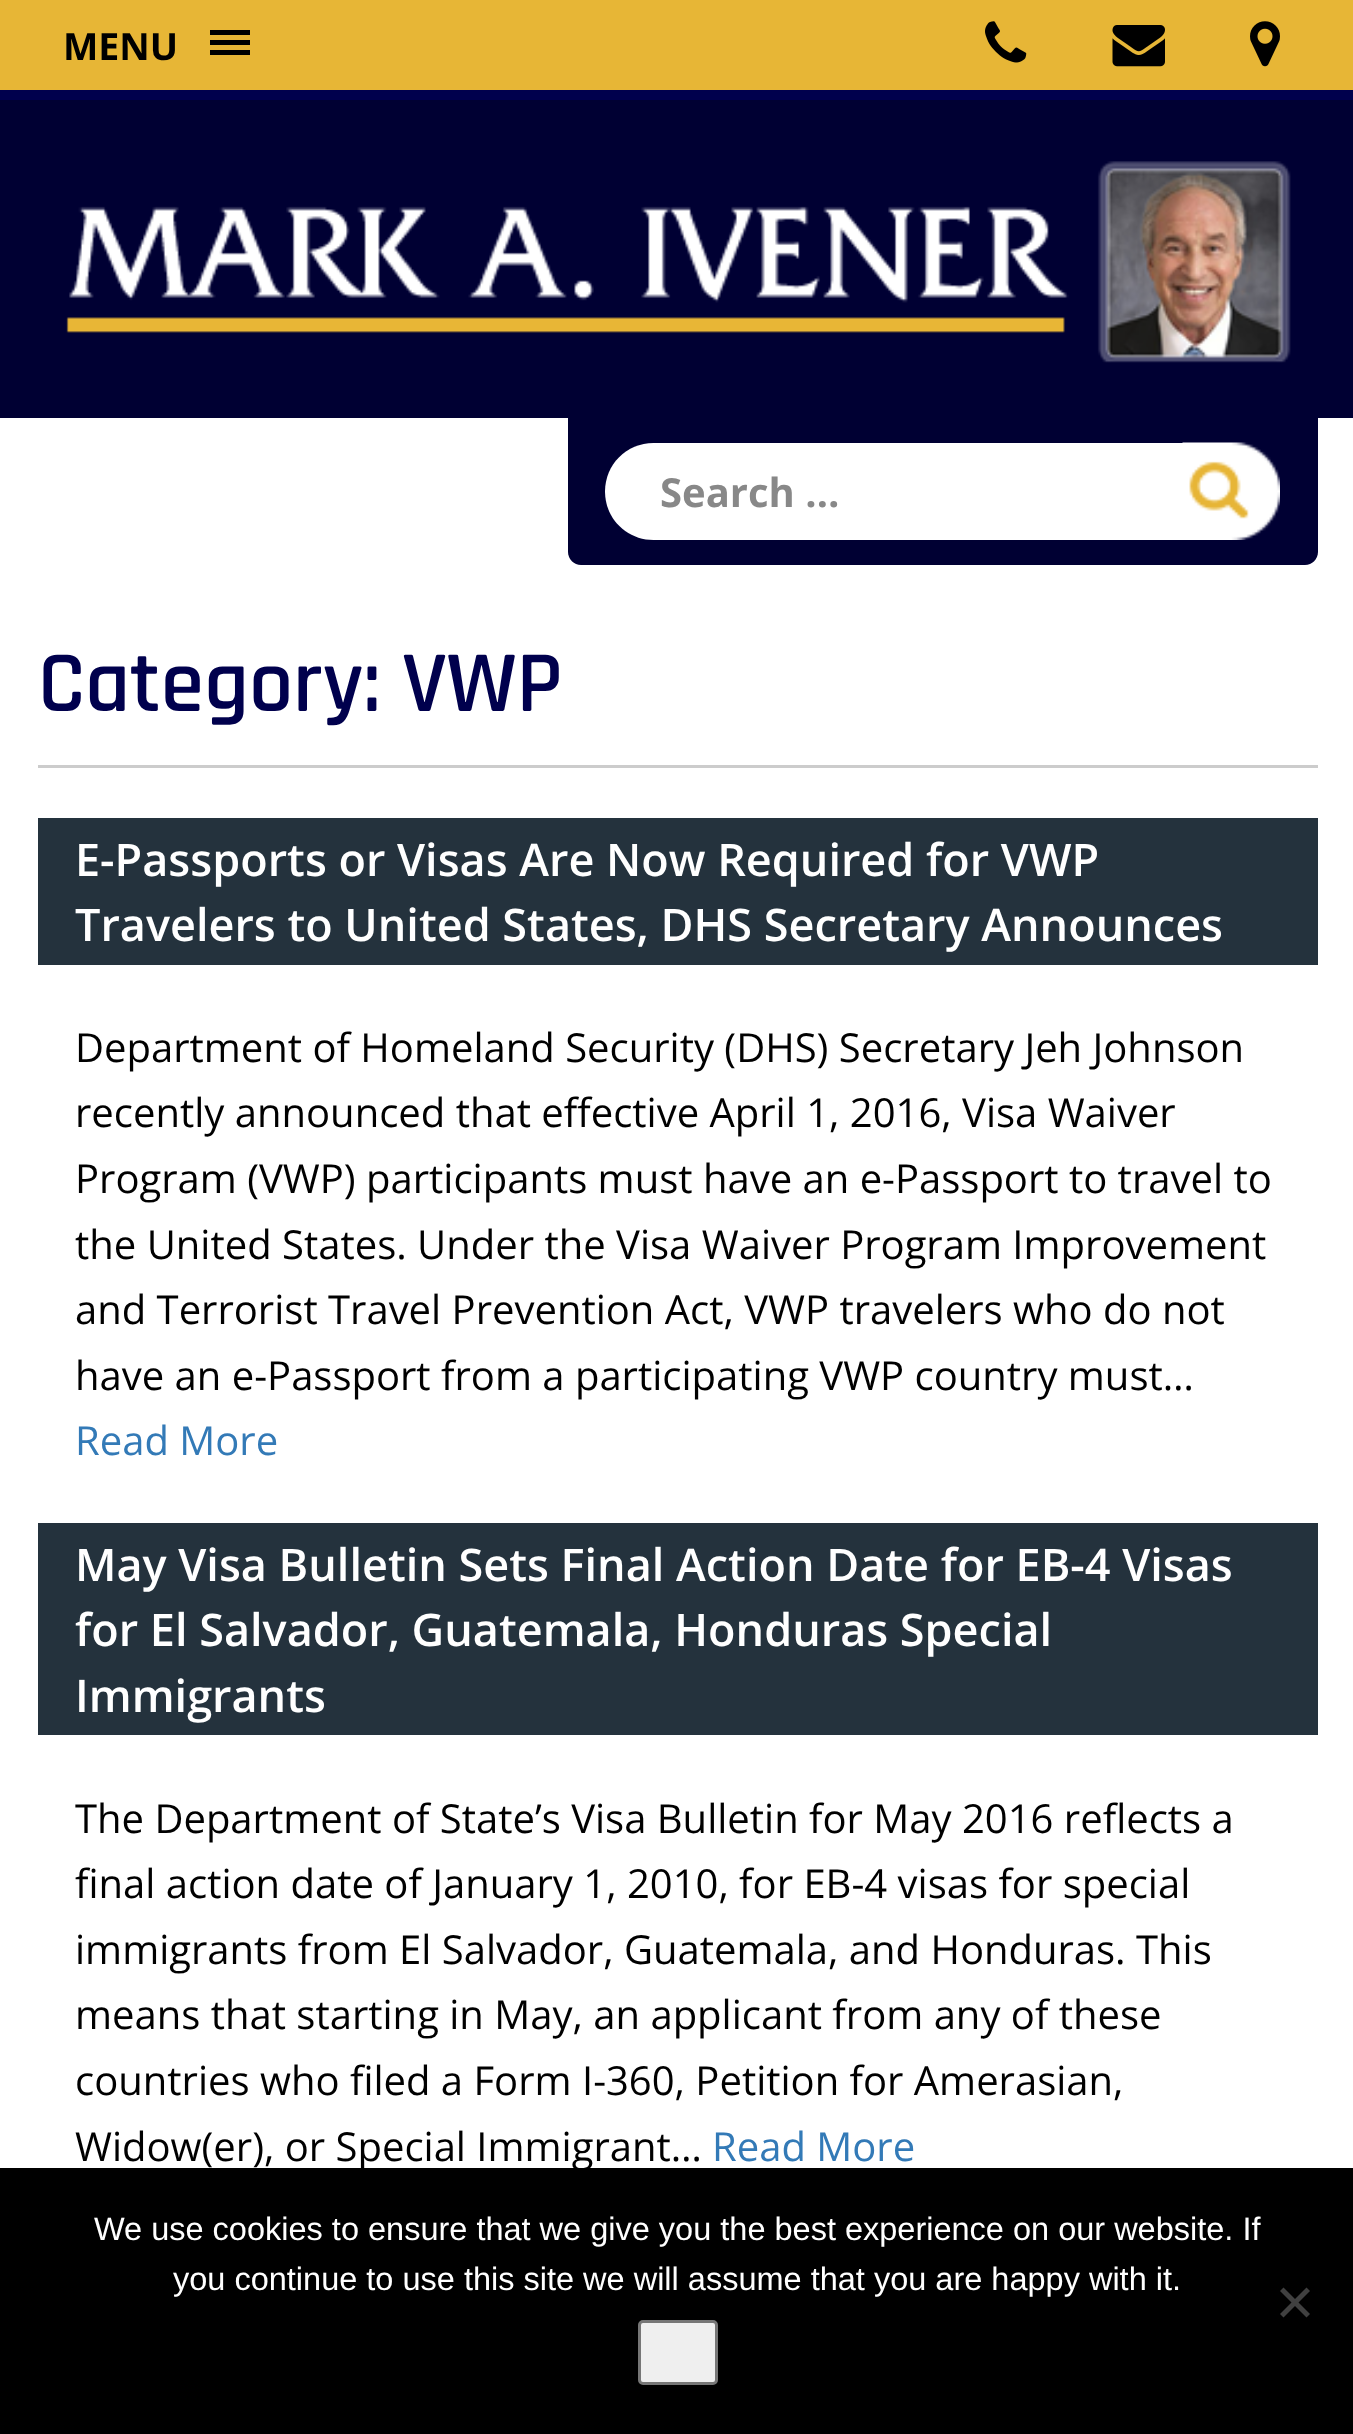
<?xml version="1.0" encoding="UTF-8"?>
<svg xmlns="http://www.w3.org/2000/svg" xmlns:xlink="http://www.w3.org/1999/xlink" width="1353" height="2434">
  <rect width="100%" height="100%" fill="#ffffff" />
  <rect width="1353" height="90" fill="#e7b636" />
  <image x="985" y="21" width="42" height="42" xlink:href="image1.png" />
  <image x="1112" y="25" width="53" height="42" xlink:href="image2.png" />
  <image x="1250" y="21" width="30" height="46" xlink:href="image3.png" />
  <rect y="90" width="1353" height="10" fill="#00004d" />
  <rect x="210" y="50" width="40" height="5" fill="#000000" />
  <rect x="210" y="30" width="40" height="5" fill="#000000" />
  <rect x="210" y="40" width="40" height="5" fill="#000000" />
  <rect y="100" width="1353" height="318" fill="#000033" />
  <image x="66" y="161" width="1225" height="202" xlink:href="image4.png" />
  <path d="M 568 418 h 750 v 134 c 0 7 -6 13 -13 13 h -724 c -7 0 -13 -6 -13 -13 z" fill="#000033" />
  <path d="M 653.5 443 h 529.5 v 97 h -529.5 c -27 0 -48.5 -21.5 -48.5 -48.5 c 0 -27 21.5 -48.5 48.5 -48.5 z" fill="#ffffff" />
  <image x="1182" y="442" width="98" height="98" xlink:href="image5.png" />
  <rect x="38" y="765" width="1280" height="3" fill="#cccccc" />
  <rect x="38" y="818" width="1280" height="147" fill="#24323d" />
  <rect x="38" y="1523" width="1280" height="212" fill="#24323d" />
  <rect y="2168" width="1353" height="266" fill="#000000" />
  <path d="M 1306.5 2287.5 l 3.5 3.5 l -26.5 26.5 l -3.5 -3.5 z" fill="#404040" />
  <path d="M 1280 2291 l 3.5 -3.5 l 26.5 26.5 l -3.5 3.5 z" fill="#404040" />
  <rect x="639.5" y="2321.5" width="77" height="62" rx="3.5" fill="#efefef" stroke="#767676" stroke-width="3" />
  <text x="63" y="60" style="font-family: Open Sans; font-size: 37.5px; font-weight: bold; fill: #000000">MENU</text>
  <text x="660" y="507" style="font-family: Open Sans; font-size: 40px; font-weight: bold; fill: #888888">Search …</text>
  <text x="38" y="711" style="font-family: Rajdhani; font-size: 87.5px; font-weight: 600; fill: #00004d">Category: VWP</text>
  <text x="75" y="876" style="font-family: Open Sans; font-size: 45px; font-weight: 600; fill: #ffffff">E-Passports or Visas Are Now Required for VWP</text>
  <text x="75" y="941" style="font-family: Open Sans; font-size: 45px; font-weight: 600; fill: #ffffff">Travelers to United States, DHS Secretary Announces</text>
  <text x="75" y="1062" style="font-family: Open Sans; font-size: 40px; fill: #000000">Department of Homeland Security (DHS) Secretary Jeh Johnson</text>
  <text x="75" y="1127" style="font-family: Open Sans; font-size: 40px; fill: #000000">recently announced that effective April 1, 2016, Visa Waiver</text>
  <text x="75" y="1193" style="font-family: Open Sans; font-size: 40px; fill: #000000">Program (VWP) participants must have an e-Passport to travel to</text>
  <text x="75" y="1259" style="font-family: Open Sans; font-size: 40px; fill: #000000">the United States. Under the Visa Waiver Program Improvement</text>
  <text x="75" y="1324" style="font-family: Open Sans; font-size: 40px; fill: #000000">and Terrorist Travel Prevention Act, VWP travelers who do not</text>
  <text x="75" y="1390" style="font-family: Open Sans; font-size: 40px; fill: #000000">have an e-Passport from a participating VWP country must…</text>
  <text x="75" y="1455" style="font-family: Open Sans; font-size: 40px; fill: #337ab7">Read More</text>
  <text x="75" y="1581" style="font-family: Open Sans; font-size: 45px; font-weight: 600; fill: #ffffff">May Visa Bulletin Sets Final Action Date for EB-4 Visas</text>
  <text x="75" y="1646" style="font-family: Open Sans; font-size: 45px; font-weight: 600; fill: #ffffff">for El Salvador, Guatemala, Honduras Special</text>
  <text x="75" y="1712" style="font-family: Open Sans; font-size: 45px; font-weight: 600; fill: #ffffff">Immigrants</text>
  <text x="75" y="1833" style="font-family: Open Sans; font-size: 40px; fill: #000000">The Department of State’s Visa Bulletin for May 2016 reflects a</text>
  <text x="75" y="1898" style="font-family: Open Sans; font-size: 40px; fill: #000000">final action date of January 1, 2010, for EB-4 visas for special</text>
  <text x="75" y="1964" style="font-family: Open Sans; font-size: 40px; fill: #000000">immigrants from El Salvador, Guatemala, and Honduras. This</text>
  <text x="75" y="2029" style="font-family: Open Sans; font-size: 40px; fill: #000000">means that starting in May, an applicant from any of these</text>
  <text x="75" y="2095" style="font-family: Open Sans; font-size: 40px; fill: #000000">countries who filed a Form I-360, Petition for Amerasian,</text>
  <text x="75" y="2161" style="font-family: Open Sans; font-size: 40px; fill: #000000">Widow(er), or Special Immigrant…</text>
  <text x="712" y="2161" style="font-family: Open Sans; font-size: 40px; fill: #337ab7">Read More</text>
  <text x="94" y="2240" style="font-family: Liberation Sans; font-size: 32.5px; fill: #ffffff">We use cookies to ensure that we give you the best experience on our website. If</text>
  <text x="173" y="2290" style="font-family: Liberation Sans; font-size: 32.5px; fill: #ffffff">you continue to use this site we will assume that you are happy with it.</text>
</svg>
